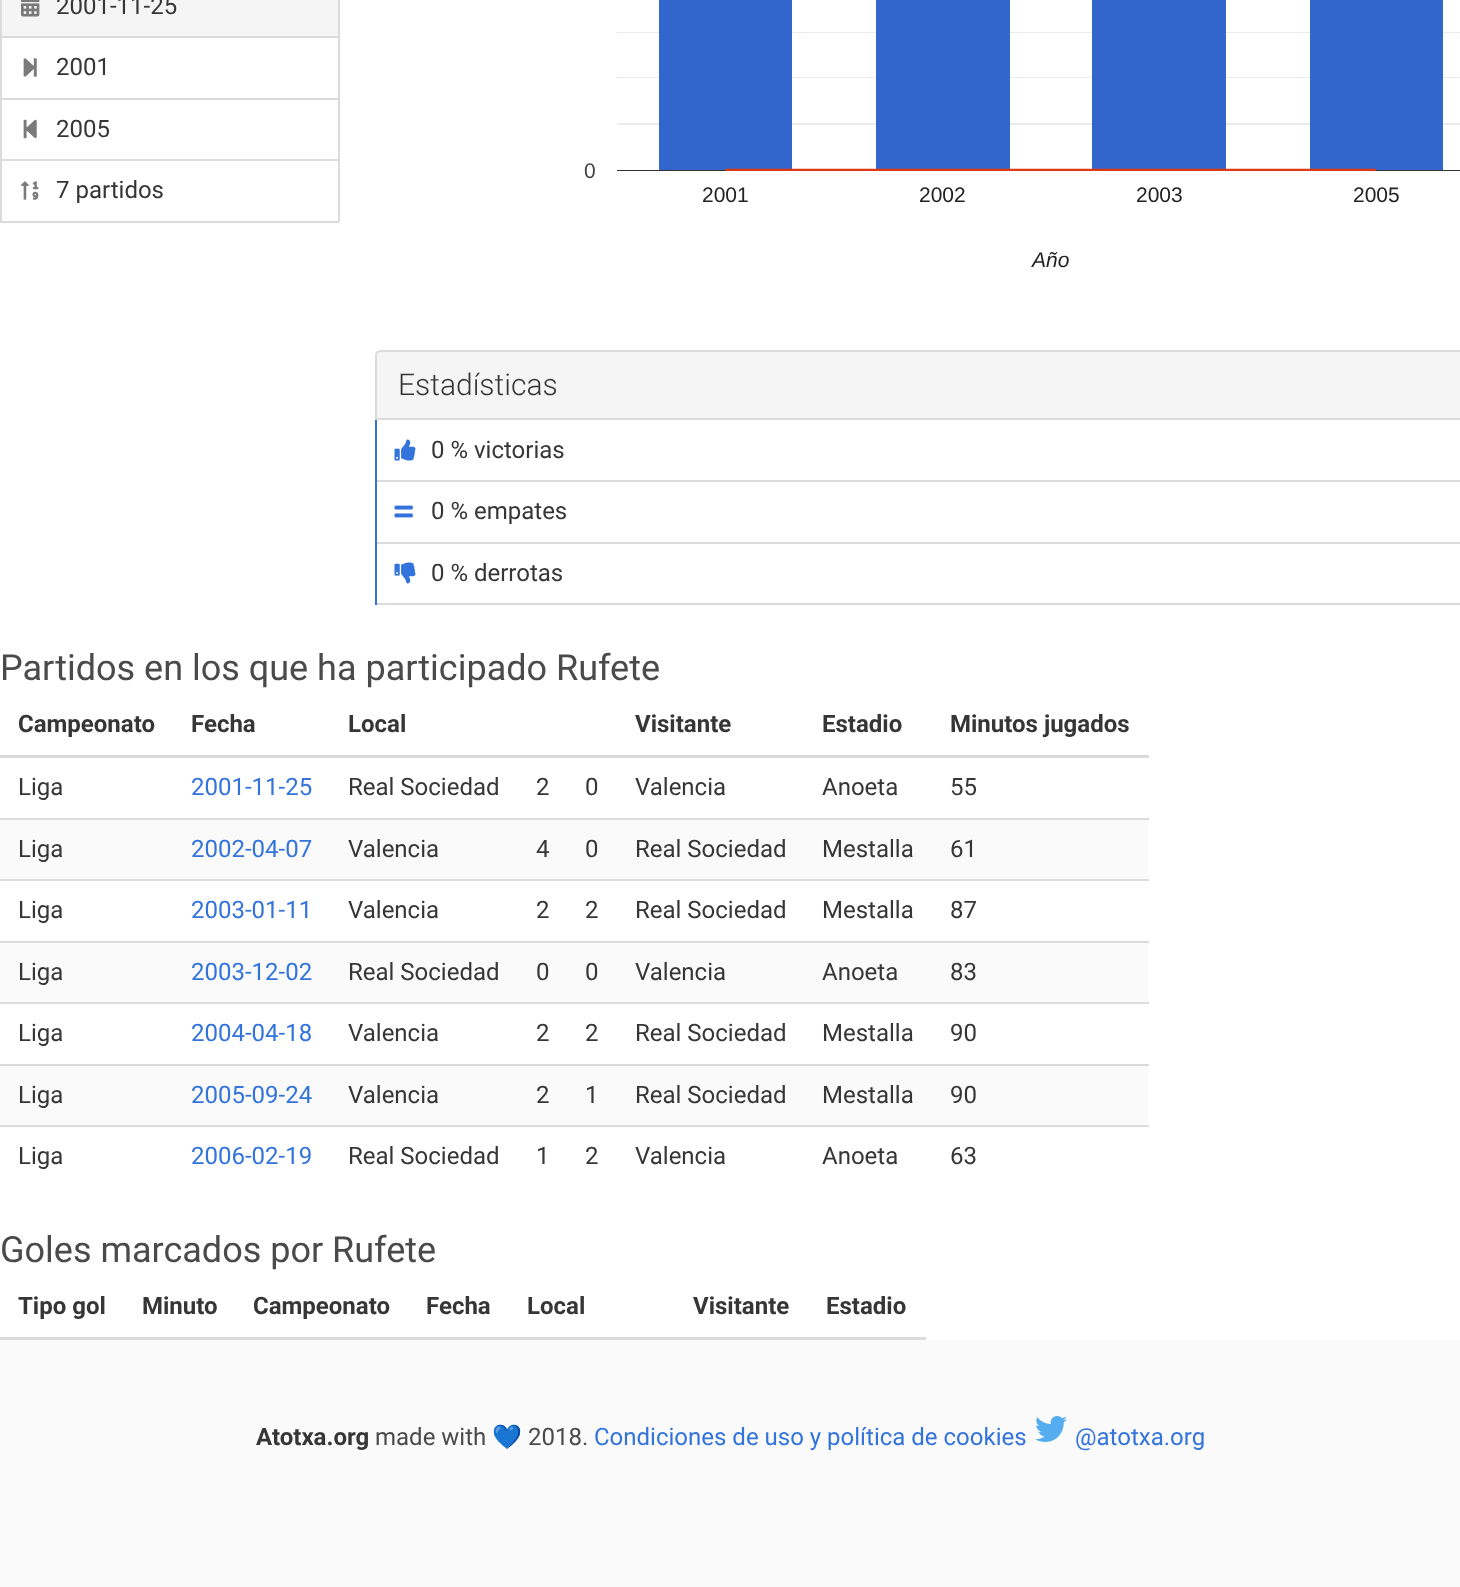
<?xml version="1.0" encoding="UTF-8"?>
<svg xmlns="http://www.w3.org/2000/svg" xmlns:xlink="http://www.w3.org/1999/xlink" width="1460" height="1587">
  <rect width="100%" height="100%" fill="#ffffff" />
  <rect x="2" width="336" height="36" fill="#f5f5f5" />
  <rect x="338" width="2" height="99" fill="#dbdbdb" />
  <rect y="36" width="339" height="2" fill="#dbdbdb" />
  <rect width="2" height="38" fill="#dbdbdb" />
  <image x="21" y="0" width="19" height="17" xlink:href="image1.png" />
  <rect y="98" width="339" height="2" fill="#dbdbdb" />
  <rect y="38" width="2" height="61" fill="#dbdbdb" />
  <image x="23" y="58" width="14" height="19" xlink:href="image2.png" />
  <rect x="338" y="99" width="2" height="123" fill="#dbdbdb" />
  <rect y="159" width="339" height="2" fill="#dbdbdb" />
  <rect y="99" width="2" height="62" fill="#dbdbdb" />
  <image x="23" y="119" width="14" height="20" xlink:href="image3.png" />
  <rect y="221" width="339" height="2" fill="#dbdbdb" />
  <rect y="161" width="2" height="61" fill="#dbdbdb" />
  <image x="21" y="181" width="18" height="19" xlink:href="image4.png" />
  <image x="617" y="0" width="843" height="171" xlink:href="image5.png" />
  <path d="M 381 351 h 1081 c 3 0 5 2 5 5 v 63 h -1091 v -63 c 0 -3 2 -5 5 -5 z" fill="#f5f5f5" stroke="#dbdbdb" stroke-width="2" />
  <rect x="375" y="480" width="1085" height="2" fill="#dbdbdb" />
  <rect x="375" y="420" width="2" height="62" fill="#3273dc" />
  <image x="394" y="439" width="22" height="22" xlink:href="image6.png" />
  <rect x="375" y="542" width="1085" height="2" fill="#dbdbdb" />
  <rect x="375" y="482" width="2" height="61" fill="#3273dc" />
  <image x="394" y="505" width="19" height="13" xlink:href="image7.png" />
  <rect x="375" y="603" width="1085" height="2" fill="#dbdbdb" />
  <rect x="375" y="543" width="2" height="62" fill="#3273dc" />
  <image x="394" y="562" width="22" height="22" xlink:href="image8.png" />
  <rect y="755" width="1149" height="3" fill="#dbdbdb" />
  <rect y="818" width="1149" height="2" fill="#dbdbdb" />
  <rect y="820" width="1148" height="59" fill="#fafafa" />
  <rect y="879" width="1149" height="2" fill="#dbdbdb" />
  <rect y="941" width="1149" height="2" fill="#dbdbdb" />
  <rect y="943" width="1148" height="59" fill="#fafafa" />
  <rect y="1002" width="1149" height="2" fill="#dbdbdb" />
  <rect y="1064" width="1149" height="2" fill="#dbdbdb" />
  <rect y="1066" width="1148" height="59" fill="#fafafa" />
  <rect y="1125" width="1149" height="2" fill="#dbdbdb" />
  <rect y="1337" width="926" height="3" fill="#dbdbdb" />
  <rect y="1340" width="1460" height="247" fill="#fafafa" />
  <image x="1035" y="1416" width="32" height="26" xlink:href="image9.png" />
  <text x="56" y="14" style="font-family: Roboto; font-size: 24px; fill: #363636">2001-11-25</text>
  <text x="56" y="75" style="font-family: Roboto; font-size: 24px; fill: #363636">2001</text>
  <text x="56" y="137" style="font-family: Roboto; font-size: 24px; fill: #363636">2005</text>
  <text x="56" y="198" style="font-family: Roboto; font-size: 24px; fill: #363636">7 partidos</text>
  <text x="584" y="178" style="font-family: Liberation Sans; font-size: 21px; fill: #444444">0</text>
  <text x="702" y="202" style="font-family: Liberation Sans; font-size: 21px; fill: #222222">2001</text>
  <text x="919" y="202" style="font-family: Liberation Sans; font-size: 21px; fill: #222222">2002</text>
  <text x="1136" y="202" style="font-family: Liberation Sans; font-size: 21px; fill: #222222">2003</text>
  <text x="1353" y="202" style="font-family: Liberation Sans; font-size: 21px; fill: #222222">2005</text>
  <text x="1032" y="267" style="font-family: Liberation Sans; font-size: 21px; font-style: italic; fill: #222222">Año</text>
  <text x="398" y="395" style="font-family: Roboto; font-size: 30px; font-weight: 300; fill: #363636">Estadísticas</text>
  <text x="431" y="458" style="font-family: Roboto; font-size: 24px; fill: #363636">0 % victorias</text>
  <text x="431" y="519" style="font-family: Roboto; font-size: 24px; fill: #363636">0 % empates</text>
  <text x="431" y="581" style="font-family: Roboto; font-size: 24px; fill: #363636">0 % derrotas</text>
  <text x="0" y="680" style="font-family: Roboto; font-size: 36px; fill: #4a4a4a">Partidos en los que ha participado Rufete</text>
  <text x="18" y="732" style="font-family: Roboto; font-size: 24px; font-weight: bold; fill: #363636">Campeonato</text>
  <text x="191" y="732" style="font-family: Roboto; font-size: 24px; font-weight: bold; fill: #363636">Fecha</text>
  <text x="348" y="732" style="font-family: Roboto; font-size: 24px; font-weight: bold; fill: #363636">Local</text>
  <text x="635" y="732" style="font-family: Roboto; font-size: 24px; font-weight: bold; fill: #363636">Visitante</text>
  <text x="822" y="732" style="font-family: Roboto; font-size: 24px; font-weight: bold; fill: #363636">Estadio</text>
  <text x="950" y="732" style="font-family: Roboto; font-size: 24px; font-weight: bold; fill: #363636">Minutos jugados</text>
  <text x="18" y="795" style="font-family: Roboto; font-size: 24px; fill: #363636">Liga</text>
  <text x="191" y="795" style="font-family: Roboto; font-size: 24px; fill: #3273dc">2001-11-25</text>
  <text x="348" y="795" style="font-family: Roboto; font-size: 24px; fill: #363636">Real Sociedad</text>
  <text x="536" y="795" style="font-family: Roboto; font-size: 24px; fill: #363636">2</text>
  <text x="585" y="795" style="font-family: Roboto; font-size: 24px; fill: #363636">0</text>
  <text x="635" y="795" style="font-family: Roboto; font-size: 24px; fill: #363636">Valencia</text>
  <text x="822" y="795" style="font-family: Roboto; font-size: 24px; fill: #363636">Anoeta</text>
  <text x="950" y="795" style="font-family: Roboto; font-size: 24px; fill: #363636">55</text>
  <text x="18" y="857" style="font-family: Roboto; font-size: 24px; fill: #363636">Liga</text>
  <text x="191" y="857" style="font-family: Roboto; font-size: 24px; fill: #3273dc">2002-04-07</text>
  <text x="348" y="857" style="font-family: Roboto; font-size: 24px; fill: #363636">Valencia</text>
  <text x="536" y="857" style="font-family: Roboto; font-size: 24px; fill: #363636">4</text>
  <text x="585" y="857" style="font-family: Roboto; font-size: 24px; fill: #363636">0</text>
  <text x="635" y="857" style="font-family: Roboto; font-size: 24px; fill: #363636">Real Sociedad</text>
  <text x="822" y="857" style="font-family: Roboto; font-size: 24px; fill: #363636">Mestalla</text>
  <text x="950" y="857" style="font-family: Roboto; font-size: 24px; fill: #363636">61</text>
  <text x="18" y="918" style="font-family: Roboto; font-size: 24px; fill: #363636">Liga</text>
  <text x="191" y="918" style="font-family: Roboto; font-size: 24px; fill: #3273dc">2003-01-11</text>
  <text x="348" y="918" style="font-family: Roboto; font-size: 24px; fill: #363636">Valencia</text>
  <text x="536" y="918" style="font-family: Roboto; font-size: 24px; fill: #363636">2</text>
  <text x="585" y="918" style="font-family: Roboto; font-size: 24px; fill: #363636">2</text>
  <text x="635" y="918" style="font-family: Roboto; font-size: 24px; fill: #363636">Real Sociedad</text>
  <text x="822" y="918" style="font-family: Roboto; font-size: 24px; fill: #363636">Mestalla</text>
  <text x="950" y="918" style="font-family: Roboto; font-size: 24px; fill: #363636">87</text>
  <text x="18" y="980" style="font-family: Roboto; font-size: 24px; fill: #363636">Liga</text>
  <text x="191" y="980" style="font-family: Roboto; font-size: 24px; fill: #3273dc">2003-12-02</text>
  <text x="348" y="980" style="font-family: Roboto; font-size: 24px; fill: #363636">Real Sociedad</text>
  <text x="536" y="980" style="font-family: Roboto; font-size: 24px; fill: #363636">0</text>
  <text x="585" y="980" style="font-family: Roboto; font-size: 24px; fill: #363636">0</text>
  <text x="635" y="980" style="font-family: Roboto; font-size: 24px; fill: #363636">Valencia</text>
  <text x="822" y="980" style="font-family: Roboto; font-size: 24px; fill: #363636">Anoeta</text>
  <text x="950" y="980" style="font-family: Roboto; font-size: 24px; fill: #363636">83</text>
  <text x="18" y="1041" style="font-family: Roboto; font-size: 24px; fill: #363636">Liga</text>
  <text x="191" y="1041" style="font-family: Roboto; font-size: 24px; fill: #3273dc">2004-04-18</text>
  <text x="348" y="1041" style="font-family: Roboto; font-size: 24px; fill: #363636">Valencia</text>
  <text x="536" y="1041" style="font-family: Roboto; font-size: 24px; fill: #363636">2</text>
  <text x="585" y="1041" style="font-family: Roboto; font-size: 24px; fill: #363636">2</text>
  <text x="635" y="1041" style="font-family: Roboto; font-size: 24px; fill: #363636">Real Sociedad</text>
  <text x="822" y="1041" style="font-family: Roboto; font-size: 24px; fill: #363636">Mestalla</text>
  <text x="950" y="1041" style="font-family: Roboto; font-size: 24px; fill: #363636">90</text>
  <text x="18" y="1103" style="font-family: Roboto; font-size: 24px; fill: #363636">Liga</text>
  <text x="191" y="1103" style="font-family: Roboto; font-size: 24px; fill: #3273dc">2005-09-24</text>
  <text x="348" y="1103" style="font-family: Roboto; font-size: 24px; fill: #363636">Valencia</text>
  <text x="536" y="1103" style="font-family: Roboto; font-size: 24px; fill: #363636">2</text>
  <text x="585" y="1103" style="font-family: Roboto; font-size: 24px; fill: #363636">1</text>
  <text x="635" y="1103" style="font-family: Roboto; font-size: 24px; fill: #363636">Real Sociedad</text>
  <text x="822" y="1103" style="font-family: Roboto; font-size: 24px; fill: #363636">Mestalla</text>
  <text x="950" y="1103" style="font-family: Roboto; font-size: 24px; fill: #363636">90</text>
  <text x="18" y="1164" style="font-family: Roboto; font-size: 24px; fill: #363636">Liga</text>
  <text x="191" y="1164" style="font-family: Roboto; font-size: 24px; fill: #3273dc">2006-02-19</text>
  <text x="348" y="1164" style="font-family: Roboto; font-size: 24px; fill: #363636">Real Sociedad</text>
  <text x="536" y="1164" style="font-family: Roboto; font-size: 24px; fill: #363636">1</text>
  <text x="585" y="1164" style="font-family: Roboto; font-size: 24px; fill: #363636">2</text>
  <text x="635" y="1164" style="font-family: Roboto; font-size: 24px; fill: #363636">Valencia</text>
  <text x="822" y="1164" style="font-family: Roboto; font-size: 24px; fill: #363636">Anoeta</text>
  <text x="950" y="1164" style="font-family: Roboto; font-size: 24px; fill: #363636">63</text>
  <text x="0" y="1262" style="font-family: Roboto; font-size: 36px; fill: #4a4a4a">Goles marcados por Rufete</text>
  <text x="18" y="1314" style="font-family: Roboto; font-size: 24px; font-weight: bold; fill: #363636">Tipo gol</text>
  <text x="142" y="1314" style="font-family: Roboto; font-size: 24px; font-weight: bold; fill: #363636">Minuto</text>
  <text x="253" y="1314" style="font-family: Roboto; font-size: 24px; font-weight: bold; fill: #363636">Campeonato</text>
  <text x="426" y="1314" style="font-family: Roboto; font-size: 24px; font-weight: bold; fill: #363636">Fecha</text>
  <text x="527" y="1314" style="font-family: Roboto; font-size: 24px; font-weight: bold; fill: #363636">Local</text>
  <text x="693" y="1314" style="font-family: Roboto; font-size: 24px; font-weight: bold; fill: #363636">Visitante</text>
  <text x="826" y="1314" style="font-family: Roboto; font-size: 24px; font-weight: bold; fill: #363636">Estadio</text>
  <text x="256" y="1445" style="font-family: Roboto; font-size: 24px; font-weight: bold; fill: #363636">Atotxa.org</text>
  <text x="375" y="1445" style="font-family: Roboto; font-size: 24px; fill: #4a4a4a">made with</text>
  <text x="492" y="1445" style="font-family: Noto Color Emoji; font-size: 24px; fill: #4a4a4a">💙</text>
  <text x="528" y="1445" style="font-family: Roboto; font-size: 24px; fill: #4a4a4a">2018.</text>
  <text x="594" y="1445" style="font-family: Roboto; font-size: 24px; fill: #3273dc">Condiciones de uso y política de cookies</text>
  <text x="1075" y="1445" style="font-family: Roboto; font-size: 24px; fill: #3273dc">@atotxa.org</text>
</svg>
